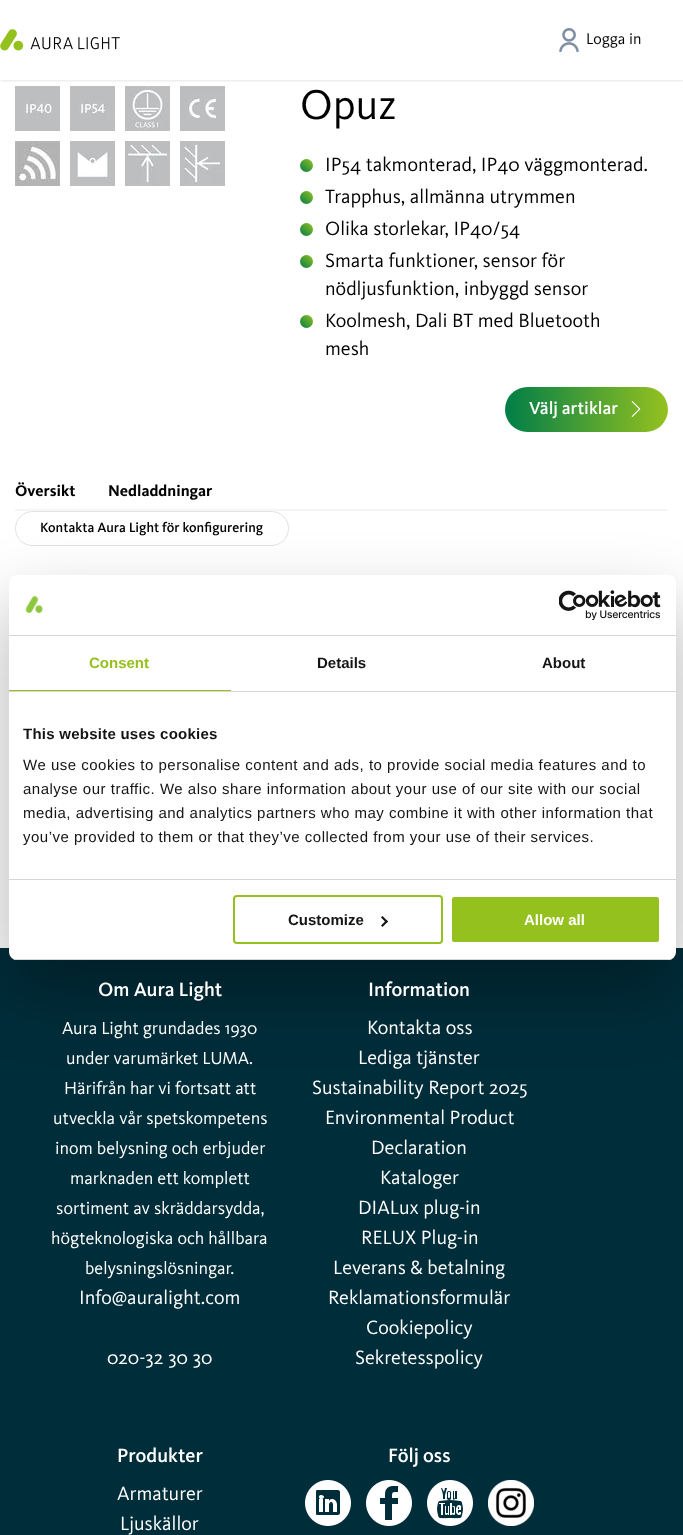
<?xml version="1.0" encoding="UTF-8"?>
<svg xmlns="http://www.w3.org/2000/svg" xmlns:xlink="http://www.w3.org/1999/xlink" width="683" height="1535">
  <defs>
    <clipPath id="clip1"><rect x="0" y="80" width="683" height="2" /></clipPath>
    <linearGradient id="g1" gradientUnits="userSpaceOnUse" x1="313" y1="159" x2="300" y2="172"><stop offset="0" stop-color="#95c11f" /><stop offset="1" stop-color="#007e48" /></linearGradient>
    <linearGradient id="g2" gradientUnits="userSpaceOnUse" x1="313" y1="191" x2="300" y2="204"><stop offset="0" stop-color="#95c11f" /><stop offset="1" stop-color="#007e48" /></linearGradient>
    <linearGradient id="g3" gradientUnits="userSpaceOnUse" x1="313" y1="223" x2="300" y2="236"><stop offset="0" stop-color="#95c11f" /><stop offset="1" stop-color="#007e48" /></linearGradient>
    <linearGradient id="g4" gradientUnits="userSpaceOnUse" x1="313" y1="255" x2="300" y2="268"><stop offset="0" stop-color="#95c11f" /><stop offset="1" stop-color="#007e48" /></linearGradient>
    <linearGradient id="g5" gradientUnits="userSpaceOnUse" x1="313" y1="315" x2="300" y2="328"><stop offset="0" stop-color="#95c11f" /><stop offset="1" stop-color="#007e48" /></linearGradient>
    <linearGradient id="g6" gradientUnits="userSpaceOnUse" x1="505" y1="410" x2="668" y2="410"><stop offset="0" stop-color="#007e48" /><stop offset="1" stop-color="#95c11f" /></linearGradient>
    <clipPath id="clip2"><rect x="9" y="575" width="667" height="385" rx="8" /></clipPath>
  </defs>
  <rect width="100%" height="100%" fill="#ffffff" />
  <image x="15" y="86" width="45" height="45" xlink:href="image3.png" />
  <image x="70" y="86" width="45" height="45" xlink:href="image4.png" />
  <image x="125" y="86" width="45" height="45" xlink:href="image5.png" />
  <image x="180" y="86" width="45" height="45" xlink:href="image6.png" />
  <g clip-path="url(#clip1)">
    <rect x="1" y="1" width="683" height="80" fill="#000000" fill-opacity="0.1" filter="blur(1.5px)" />
  </g>
  <image x="0" y="29" width="120" height="22" xlink:href="image1.png" />
  <image x="559" y="28" width="20" height="24" xlink:href="image2.png" />
  <image x="15" y="141" width="45" height="45" xlink:href="image7.png" />
  <image x="70" y="141" width="45" height="45" xlink:href="image8.png" />
  <image x="125" y="141" width="45" height="45" xlink:href="image9.png" />
  <image x="180" y="141" width="45" height="45" xlink:href="image10.png" />
  <circle cx="306.5" cy="165.5" r="6.5" fill="url(#g1)" />
  <circle cx="306.5" cy="197.5" r="6.5" fill="url(#g2)" />
  <circle cx="306.5" cy="229.5" r="6.5" fill="url(#g3)" />
  <circle cx="306.5" cy="261.5" r="6.5" fill="url(#g4)" />
  <circle cx="306.5" cy="321.5" r="6.5" fill="url(#g5)" />
  <rect x="505" y="387" width="163" height="45" rx="22.5" fill="url(#g6)" />
  <image x="631" y="401" width="10" height="16" xlink:href="image11.png" />
  <rect x="15" y="509" width="653" height="2" fill="#f5f5f5" />
  <rect x="15.5" y="511.5" width="273" height="34" rx="17" fill="none" stroke="#e2e2e2" />
  <rect y="948" width="683" height="587" fill="#002d3a" />
  <rect x="9" y="607" width="667" height="385" rx="8" fill="#000000" fill-opacity="0.3" filter="blur(34px)" />
  <rect x="9" y="575" width="667" height="385" rx="8" fill="#ffffff" />
  <rect x="9" y="635" width="667" height="1" fill="#d6d6d6" />
  <image x="25" y="596" width="19" height="18" xlink:href="image12.png" />
  <image x="559" y="590" width="102" height="30" xlink:href="image13.png" />
  <rect x="9" y="691" width="667" height="1" fill="#d6d6d6" />
  <rect x="9" y="690" width="222" height="1" fill="#95c11f" />
  <rect x="9" y="879" width="667" height="1" fill="#d6d6d6" />
  <g clip-path="url(#clip2)">
    <rect x="9" y="959" width="667" height="1" fill="#d6d6d6" />
  </g>
  <rect x="234" y="896" width="208" height="47" rx="3" fill="none" stroke="#95c11f" stroke-width="2" />
  <path d="M 382.5 916 l 5.5 5.5 l -1.5 1.5 l -5.5 -5.5 z" fill="#141414" />
  <path d="M 386.5 920 l 1.5 1.5 l -5.5 5.5 l -1.5 -1.5 z" fill="#141414" />
  <rect x="451" y="896" width="209" height="47" rx="3" fill="#95c11f" stroke="#ffffff" stroke-width="2" />
  <image x="305" y="1480" width="46" height="46" xlink:href="image14.png" />
  <image x="366" y="1480" width="46" height="46" xlink:href="image15.png" />
  <image x="427" y="1480" width="46" height="46" xlink:href="image16.png" />
  <image x="488" y="1480" width="46" height="46" xlink:href="image17.png" />
  <text x="586" y="44" style="font-family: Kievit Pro; font-size: 16px; fill: #000000">Logga in</text>
  <text x="300" y="119" style="font-family: Kievit Pro; font-size: 43px; fill: #000000">Opuz</text>
  <text x="325" y="171" style="font-family: Kievit Pro; font-size: 20px; fill: #000000">IP54 takmonterad, IP40 väggmonterad.</text>
  <text x="325" y="203" style="font-family: Kievit Pro; font-size: 20px; fill: #000000">Trapphus, allmänna utrymmen</text>
  <text x="325" y="235" style="font-family: Kievit Pro; font-size: 20px; fill: #000000">Olika storlekar, IP40/54</text>
  <text x="325" y="267" style="font-family: Kievit Pro; font-size: 20px; fill: #000000">Smarta funktioner, sensor för</text>
  <text x="325" y="295" style="font-family: Kievit Pro; font-size: 20px; fill: #000000">nödljusfunktion, inbyggd sensor</text>
  <text x="325" y="327" style="font-family: Kievit Pro; font-size: 20px; fill: #000000">Koolmesh, Dali BT med Bluetooth</text>
  <text x="325" y="355" style="font-family: Kievit Pro; font-size: 20px; fill: #000000">mesh</text>
  <text x="529" y="414" style="font-family: Kievit Pro; font-size: 18px; font-weight: 500; fill: #ffffff">Välj artiklar</text>
  <text x="15" y="496" style="font-family: Kievit Pro; font-size: 16px; font-weight: bold; fill: #000000">Översikt</text>
  <text x="108" y="496" style="font-family: Kievit Pro; font-size: 16px; font-weight: bold; fill: #000000">Nedladdningar</text>
  <text x="40" y="532" style="font-family: Kievit Pro; font-size: 14px; font-weight: 500; fill: #000000">Kontakta Aura Light för konfigurering</text>
  <text x="89" y="668" style="font-family: Liberation Sans; font-size: 15px; font-weight: bold; fill: #95c11f">Consent</text>
  <text x="317" y="668" style="font-family: Liberation Sans; font-size: 15px; font-weight: bold; fill: #141414">Details</text>
  <text x="542" y="668" style="font-family: Liberation Sans; font-size: 15px; font-weight: bold; fill: #141414">About</text>
  <text x="23" y="739" style="font-family: Liberation Sans; font-size: 15px; font-weight: bold; letter-spacing: 0.25px; fill: #141414">This website uses cookies</text>
  <text x="23" y="770" style="font-family: Liberation Sans; font-size: 15px; letter-spacing: 0.5px; fill: #141414">We use cookies to personalise content and ads, to provide social media features and to</text>
  <text x="23" y="794" style="font-family: Liberation Sans; font-size: 15px; letter-spacing: 0.5px; fill: #141414">analyse our traffic. We also share information about your use of our site with our social</text>
  <text x="23" y="818" style="font-family: Liberation Sans; font-size: 15px; letter-spacing: 0.5px; fill: #141414">media, advertising and analytics partners who may combine it with other information that</text>
  <text x="23" y="842" style="font-family: Liberation Sans; font-size: 15px; letter-spacing: 0.5px; fill: #141414">you’ve provided to them or that they’ve collected from your use of their services.</text>
  <text x="288" y="925" style="font-family: Liberation Sans; font-size: 15px; font-weight: bold; fill: #141414">Customize</text>
  <text x="524" y="925" style="font-family: Liberation Sans; font-size: 15px; font-weight: bold; fill: #ffffff">Allow all</text>
  <text x="98" y="996" style="font-family: Kievit Pro; font-size: 20px; font-weight: 500; fill: #ffffff">Om Aura Light</text>
  <text x="62" y="1034" style="font-family: Kievit Pro; font-size: 18px; fill: #ffffff">Aura Light grundades 1930</text>
  <text x="66" y="1064" style="font-family: Kievit Pro; font-size: 18px; fill: #ffffff">under varumärket LUMA.</text>
  <text x="64" y="1094" style="font-family: Kievit Pro; font-size: 18px; fill: #ffffff">Härifrån har vi fortsatt att</text>
  <text x="53" y="1124" style="font-family: Kievit Pro; font-size: 18px; fill: #ffffff">utveckla vår spetskompetens</text>
  <text x="55" y="1154" style="font-family: Kievit Pro; font-size: 18px; fill: #ffffff">inom belysning och erbjuder</text>
  <text x="70" y="1184" style="font-family: Kievit Pro; font-size: 18px; fill: #ffffff">marknaden ett komplett</text>
  <text x="56" y="1214" style="font-family: Kievit Pro; font-size: 18px; fill: #ffffff">sortiment av skräddarsydda,</text>
  <text x="51" y="1244" style="font-family: Kievit Pro; font-size: 18px; fill: #ffffff">högteknologiska och hållbara</text>
  <text x="85" y="1274" style="font-family: Kievit Pro; font-size: 18px; fill: #ffffff">belysningslösningar.</text>
  <text x="79" y="1304" style="font-family: Kievit Pro; font-size: 20px; fill: #ffffff">Info@auralight.com</text>
  <text x="107" y="1364" style="font-family: Kievit Pro; font-size: 20px; fill: #ffffff">020-32 30 30</text>
  <text x="368" y="996" style="font-family: Kievit Pro; font-size: 20px; font-weight: 500; fill: #ffffff">Information</text>
  <text x="367" y="1034" style="font-family: Kievit Pro; font-size: 20px; fill: #ffffff">Kontakta oss</text>
  <text x="358" y="1064" style="font-family: Kievit Pro; font-size: 20px; fill: #ffffff">Lediga tjänster</text>
  <text x="312" y="1094" style="font-family: Kievit Pro; font-size: 20px; fill: #ffffff">Sustainability Report 2025</text>
  <text x="325" y="1124" style="font-family: Kievit Pro; font-size: 20px; fill: #ffffff">Environmental Product</text>
  <text x="371" y="1154" style="font-family: Kievit Pro; font-size: 20px; fill: #ffffff">Declaration</text>
  <text x="380" y="1184" style="font-family: Kievit Pro; font-size: 20px; fill: #ffffff">Kataloger</text>
  <text x="358" y="1214" style="font-family: Kievit Pro; font-size: 20px; fill: #ffffff">DIALux plug-in</text>
  <text x="361" y="1244" style="font-family: Kievit Pro; font-size: 20px; fill: #ffffff">RELUX Plug-in</text>
  <text x="333" y="1274" style="font-family: Kievit Pro; font-size: 20px; fill: #ffffff">Leverans &amp; betalning</text>
  <text x="328" y="1304" style="font-family: Kievit Pro; font-size: 20px; fill: #ffffff">Reklamationsformulär</text>
  <text x="366" y="1334" style="font-family: Kievit Pro; font-size: 20px; fill: #ffffff">Cookiepolicy</text>
  <text x="355" y="1364" style="font-family: Kievit Pro; font-size: 20px; fill: #ffffff">Sekretesspolicy</text>
  <text x="117" y="1462" style="font-family: Kievit Pro; font-size: 20px; font-weight: 500; fill: #ffffff">Produkter</text>
  <text x="117" y="1500" style="font-family: Kievit Pro; font-size: 20px; fill: #ffffff">Armaturer</text>
  <text x="120" y="1530" style="font-family: Kievit Pro; font-size: 20px; fill: #ffffff">Ljuskällor</text>
  <text x="388" y="1462" style="font-family: Kievit Pro; font-size: 20px; font-weight: 500; fill: #ffffff">Följ oss</text>
</svg>
